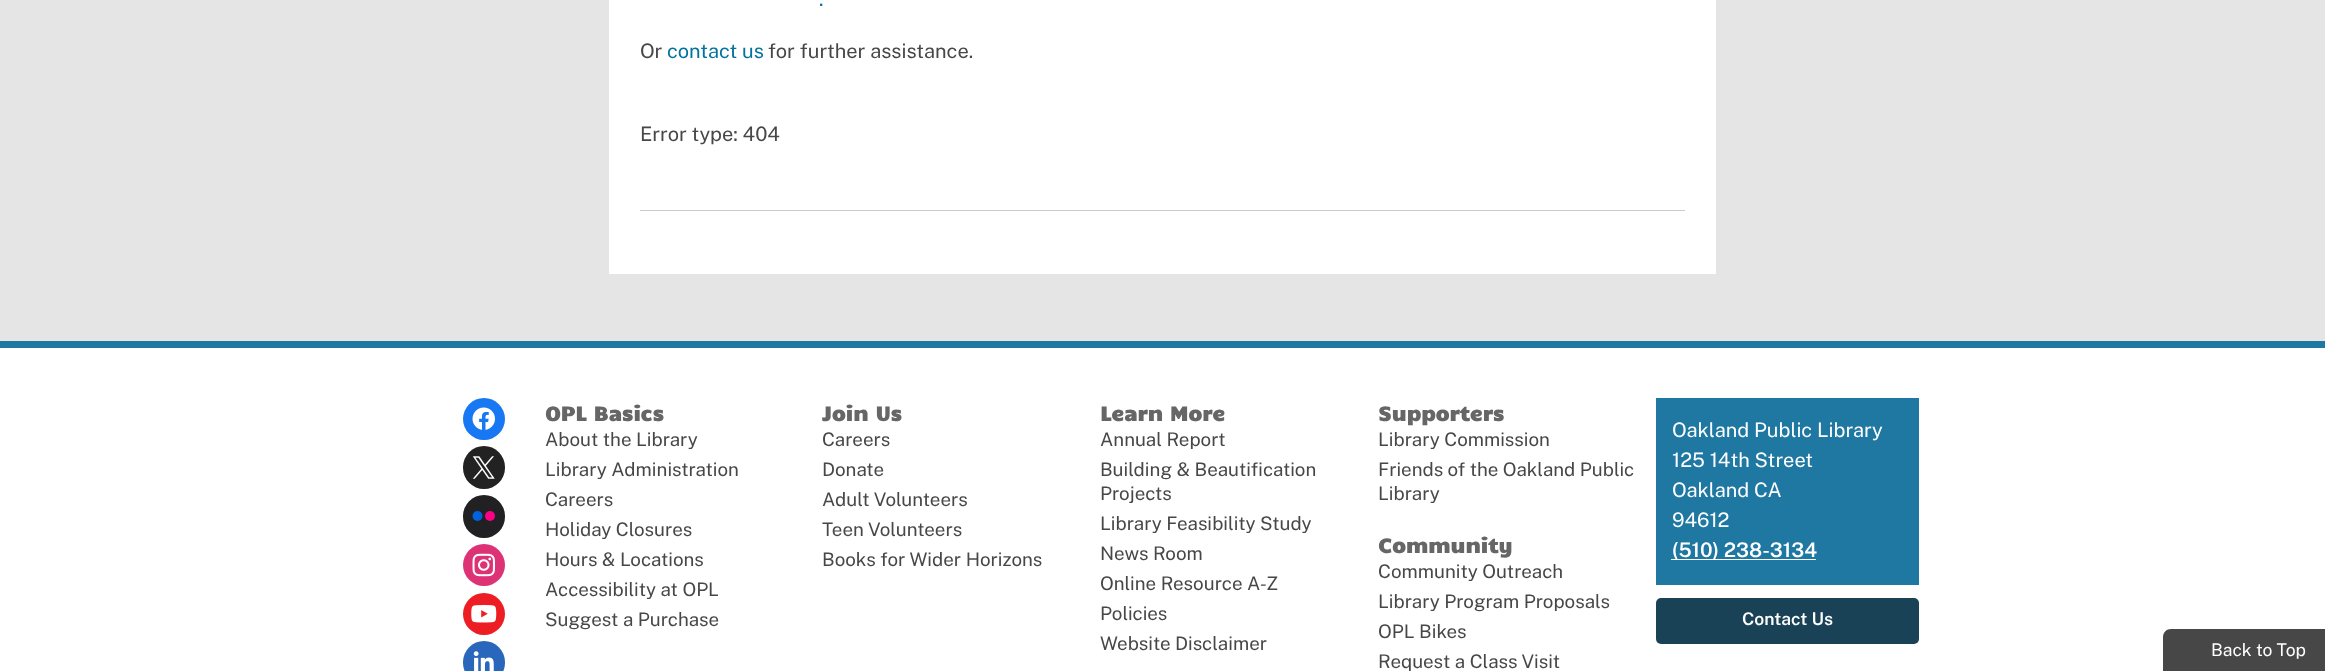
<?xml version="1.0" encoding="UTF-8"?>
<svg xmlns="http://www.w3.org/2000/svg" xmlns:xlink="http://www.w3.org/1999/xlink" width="2325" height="671">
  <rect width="100%" height="100%" fill="#e5e5e5" />
  <rect x="609" width="1107" height="274" fill="#ffffff" />
  <rect x="640" y="210" width="1045" height="1" fill="#cccccc" />
  <rect y="348" width="2325" height="323" fill="#ffffff" />
  <rect y="341" width="2325" height="7" fill="#1e78a2" />
  <circle cx="484" cy="419" r="21" fill="#1877f2" />
  <image x="472" y="407" width="23" height="23" xlink:href="image1.png" />
  <rect x="463" y="446" width="42" height="43" rx="21" fill="#222222" />
  <image x="472" y="456" width="23" height="23" xlink:href="image2.png" />
  <rect x="463" y="495" width="42" height="43" rx="21" fill="#212123" />
  <circle cx="477.5" cy="516" r="5" fill="#0063dc" />
  <circle cx="490" cy="516" r="5" fill="#ff0084" />
  <circle cx="484" cy="565" r="21" fill="#dd3275" />
  <image x="472" y="553" width="23" height="24" xlink:href="image3.png" />
  <circle cx="484" cy="614" r="21" fill="#ed1d24" />
  <image x="471" y="605" width="26" height="18" xlink:href="image4.png" />
  <rect x="463" y="641" width="42" height="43" rx="21" fill="#2967bc" />
  <image x="473" y="651" width="21" height="20" xlink:href="image5.png" />
  <rect x="1656" y="398" width="263" height="187" fill="#1e78a2" />
  <rect x="1671" y="559" width="145" height="1" fill="#ffffff" />
  <rect x="1656" y="598" width="263" height="46" rx="5" fill="#194257" />
  <path d="M 2171 629 h 154 v 42 h -162 v -34 c 0 -4.5 3.5 -8 8 -8 z" fill="#474747" />
  <text x="819" y="6" style="font-family: Public Sans; font-size: 20px; fill: #02729e">.</text>
  <text x="640" y="58" style="font-family: Public Sans; font-size: 20px; fill: #474747">Or</text>
  <text x="667" y="58" style="font-family: Public Sans; font-size: 20px; fill: #02729e">contact us</text>
  <text x="768" y="58" style="font-family: Public Sans; font-size: 20px; fill: #474747">for further assistance.</text>
  <text x="640" y="141" style="font-family: Public Sans; font-size: 20px; fill: #474747">Error type: 404</text>
  <text x="545" y="421" style="font-family: Candal; font-size: 20px; font-weight: bold; fill: #666666">OPL Basics</text>
  <text x="545" y="446" style="font-family: Public Sans; font-size: 18.75px; fill: #474747">About the Library</text>
  <text x="545" y="476" style="font-family: Public Sans; font-size: 18.75px; fill: #474747">Library Administration</text>
  <text x="545" y="506" style="font-family: Public Sans; font-size: 18.75px; fill: #474747">Careers</text>
  <text x="545" y="536" style="font-family: Public Sans; font-size: 18.75px; fill: #474747">Holiday Closures</text>
  <text x="545" y="566" style="font-family: Public Sans; font-size: 18.75px; fill: #474747">Hours &amp; Locations</text>
  <text x="545" y="596" style="font-family: Public Sans; font-size: 18.75px; fill: #474747">Accessibility at OPL</text>
  <text x="545" y="626" style="font-family: Public Sans; font-size: 18.75px; fill: #474747">Suggest a Purchase</text>
  <text x="822" y="421" style="font-family: Candal; font-size: 20px; font-weight: bold; fill: #666666">Join Us</text>
  <text x="822" y="446" style="font-family: Public Sans; font-size: 18.75px; fill: #474747">Careers</text>
  <text x="822" y="476" style="font-family: Public Sans; font-size: 18.75px; fill: #474747">Donate</text>
  <text x="822" y="506" style="font-family: Public Sans; font-size: 18.75px; fill: #474747">Adult Volunteers</text>
  <text x="822" y="536" style="font-family: Public Sans; font-size: 18.75px; fill: #474747">Teen Volunteers</text>
  <text x="822" y="566" style="font-family: Public Sans; font-size: 18.75px; fill: #474747">Books for Wider Horizons</text>
  <text x="1100" y="421" style="font-family: Candal; font-size: 20px; font-weight: bold; fill: #666666">Learn More</text>
  <text x="1100" y="446" style="font-family: Public Sans; font-size: 18.75px; fill: #474747">Annual Report</text>
  <text x="1100" y="476" style="font-family: Public Sans; font-size: 18.75px; fill: #474747">Building &amp; Beautification</text>
  <text x="1100" y="500" style="font-family: Public Sans; font-size: 18.75px; fill: #474747">Projects</text>
  <text x="1100" y="530" style="font-family: Public Sans; font-size: 18.75px; fill: #474747">Library Feasibility Study</text>
  <text x="1100" y="560" style="font-family: Public Sans; font-size: 18.75px; fill: #474747">News Room</text>
  <text x="1100" y="590" style="font-family: Public Sans; font-size: 18.75px; fill: #474747">Online Resource A-Z</text>
  <text x="1100" y="620" style="font-family: Public Sans; font-size: 18.75px; fill: #474747">Policies</text>
  <text x="1100" y="650" style="font-family: Public Sans; font-size: 18.75px; fill: #474747">Website Disclaimer</text>
  <text x="1378" y="421" style="font-family: Candal; font-size: 20px; font-weight: bold; fill: #666666">Supporters</text>
  <text x="1378" y="446" style="font-family: Public Sans; font-size: 18.75px; fill: #474747">Library Commission</text>
  <text x="1378" y="476" style="font-family: Public Sans; font-size: 18.75px; fill: #474747">Friends of the Oakland Public</text>
  <text x="1378" y="500" style="font-family: Public Sans; font-size: 18.75px; fill: #474747">Library</text>
  <text x="1378" y="553" style="font-family: Candal; font-size: 20px; font-weight: bold; fill: #666666">Community</text>
  <text x="1378" y="578" style="font-family: Public Sans; font-size: 18.75px; fill: #474747">Community Outreach</text>
  <text x="1378" y="608" style="font-family: Public Sans; font-size: 18.75px; fill: #474747">Library Program Proposals</text>
  <text x="1378" y="638" style="font-family: Public Sans; font-size: 18.75px; fill: #474747">OPL Bikes</text>
  <text x="1378" y="668" style="font-family: Public Sans; font-size: 18.75px; fill: #474747">Request a Class Visit</text>
  <text x="1672" y="437" style="font-family: Public Sans; font-size: 20px; fill: #ffffff">Oakland Public Library</text>
  <text x="1672" y="467" style="font-family: Public Sans; font-size: 20px; fill: #ffffff">125 14th Street</text>
  <text x="1672" y="497" style="font-family: Public Sans; font-size: 20px; fill: #ffffff">Oakland CA</text>
  <text x="1672" y="527" style="font-family: Public Sans; font-size: 20px; fill: #ffffff">94612</text>
  <text x="1672" y="557" style="font-family: Public Sans; font-size: 20px; font-weight: 600; fill: #ffffff">(510) 238-3134</text>
  <text x="1742" y="625" style="font-family: Public Sans; font-size: 17.5px; font-weight: 600; fill: #ffffff">Contact Us</text>
  <text x="2211" y="656" style="font-family: Public Sans; font-size: 17.5px; fill: #ffffff">Back to Top</text>
</svg>
